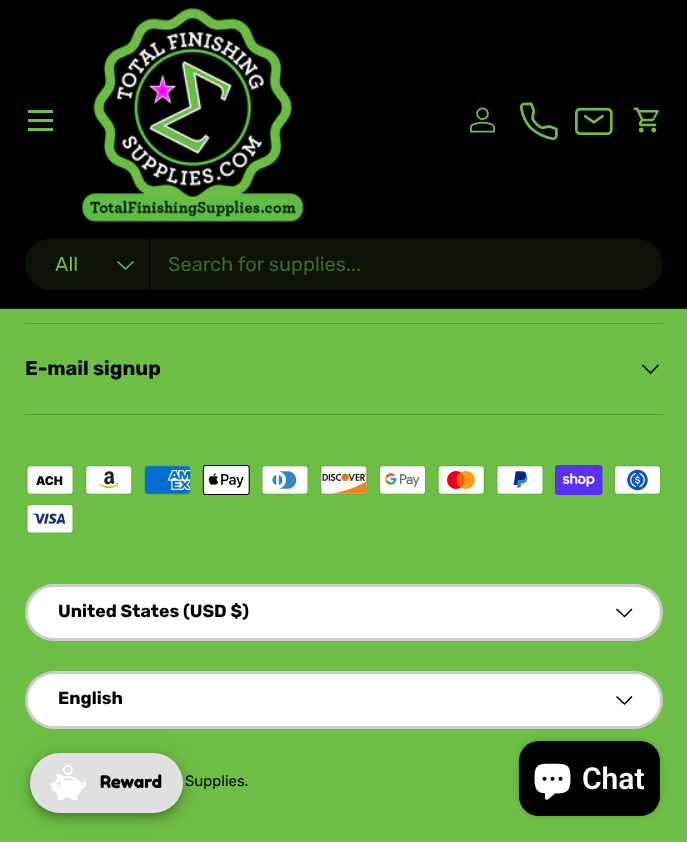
<?xml version="1.0" encoding="UTF-8"?>
<svg xmlns="http://www.w3.org/2000/svg" xmlns:xlink="http://www.w3.org/1999/xlink" width="687" height="842">
  <rect width="100%" height="100%" fill="#6dbe45" />
  <rect width="687" height="308" fill="#000000" />
  <rect y="308" width="687" height="1" fill="#101d0a" />
  <rect x="28" y="110" width="25" height="3" fill="#6dbe45" />
  <rect x="28" y="128" width="25" height="3" fill="#6dbe45" />
  <rect x="28" y="119" width="25" height="3" fill="#6dbe45" />
  <image x="81" y="8" width="223" height="215" xlink:href="image1.png" />
  <image x="470" y="107" width="25" height="26" xlink:href="image2.png" />
  <image x="520" y="102" width="38" height="39" xlink:href="image3.png" />
  <image x="575" y="107" width="38" height="28" xlink:href="image4.png" />
  <image x="633" y="107" width="26" height="26" xlink:href="image5.png" />
  <rect x="25" y="239" width="638" height="51" rx="25.5" fill="#0b1307" />
  <path d="M 50.5 239 h 99.5 v 51 h -99.5 c -14 0 -25.5 -11.5 -25.5 -25.5 c 0 -14 11.5 -25.5 25.5 -25.5 z" fill="#0b1307" />
  <rect x="149" y="239" width="1" height="51" fill="#000000" />
  <path d="M 133.5 261.5 l -8 7.5 l -8 -7.5" fill="none" stroke="#6dbe45" stroke-width="1.6" />
  <rect x="25" y="323" width="638" height="1" fill="#579837" />
  <rect x="25" y="414" width="638" height="1" fill="#579837" />
  <path d="M 658.5 365 l -8 8 l -8 -8" fill="none" stroke="#000000" stroke-width="1.6" />
  <image x="26" y="465" width="48" height="30" xlink:href="image6.png" />
  <image x="85" y="465" width="48" height="30" xlink:href="image7.png" />
  <image x="144" y="465" width="47" height="30" xlink:href="image8.png" />
  <image x="202" y="465" width="48" height="30" xlink:href="image9.png" />
  <image x="261" y="465" width="48" height="30" xlink:href="image10.png" />
  <image x="320" y="465" width="48" height="30" xlink:href="image11.png" />
  <image x="379" y="465" width="47" height="30" xlink:href="image12.png" />
  <image x="437" y="465" width="48" height="30" xlink:href="image13.png" />
  <image x="496" y="465" width="48" height="30" xlink:href="image14.png" />
  <image x="555" y="465" width="48" height="30" xlink:href="image15.png" />
  <image x="614" y="465" width="47" height="30" xlink:href="image16.png" />
  <image x="26" y="504" width="48" height="30" xlink:href="image17.png" />
  <rect x="25" y="584" width="638" height="57" rx="28.5" fill="#ffffff" />
  <rect x="26.5" y="585.5" width="635" height="54" rx="27" fill="none" stroke="#000000" stroke-opacity="0.2" stroke-width="3" />
  <path d="M 632 609 l -7.5 7.5 l -8 -7.5" fill="none" stroke="#000000" stroke-width="1.6" />
  <rect x="25" y="671" width="638" height="58" rx="29" fill="#ffffff" />
  <rect x="26.5" y="672.5" width="635" height="55" rx="27.5" fill="none" stroke="#000000" stroke-opacity="0.2" stroke-width="3" />
  <path d="M 632 696.5 l -7.5 7.5 l -8 -7.5" fill="none" stroke="#000000" stroke-width="1.6" />
  <rect x="519" y="741" width="141" height="75" rx="20" fill="#000000" fill-opacity="0.15" filter="blur(3px)" />
  <rect x="519" y="741" width="141" height="75" rx="20" fill="#000000" />
  <image x="534" y="763" width="37" height="37" xlink:href="image18.png" />
  <rect x="30" y="754" width="153" height="60" rx="30" fill="#000000" fill-opacity="0.12" filter="blur(11px)" />
  <rect x="30" y="760" width="153" height="60" rx="30" fill="#000000" fill-opacity="0.14" filter="blur(6px)" />
  <rect x="31" y="758" width="150" height="57" rx="28.5" fill="#000000" fill-opacity="0.2" filter="blur(3px)" />
  <rect x="30" y="753" width="153" height="60" rx="30" fill="#e0e0e0" />
  <image x="51" y="765" width="36" height="35" xlink:href="image19.png" />
  <text x="55" y="271" style="font-family: Rubik; font-size: 20px; fill: #6dbe45">All</text>
  <text x="168" y="271" style="font-family: Rubik; font-size: 20px; fill: #3c6926">Search for supplies...</text>
  <text x="25" y="375" style="font-family: Rubik; font-size: 20px; font-weight: bold; fill: #000000">E-mail signup</text>
  <text x="58" y="617" style="font-family: Rubik; font-size: 17.6px; font-weight: bold; fill: #000000">United States (USD $)</text>
  <text x="58" y="704" style="font-family: Rubik; font-size: 17.6px; font-weight: bold; fill: #000000">English</text>
  <text x="185" y="786" style="font-family: Rubik; font-size: 15px; fill: #000000">Supplies.</text>
  <text x="582" y="789" style="font-family: Roboto; font-size: 30px; font-weight: 600; fill: #ffffff">Chat</text>
  <text x="100" y="788" style="font-family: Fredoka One; font-size: 17.5px; fill: #000000">Reward</text>
</svg>
